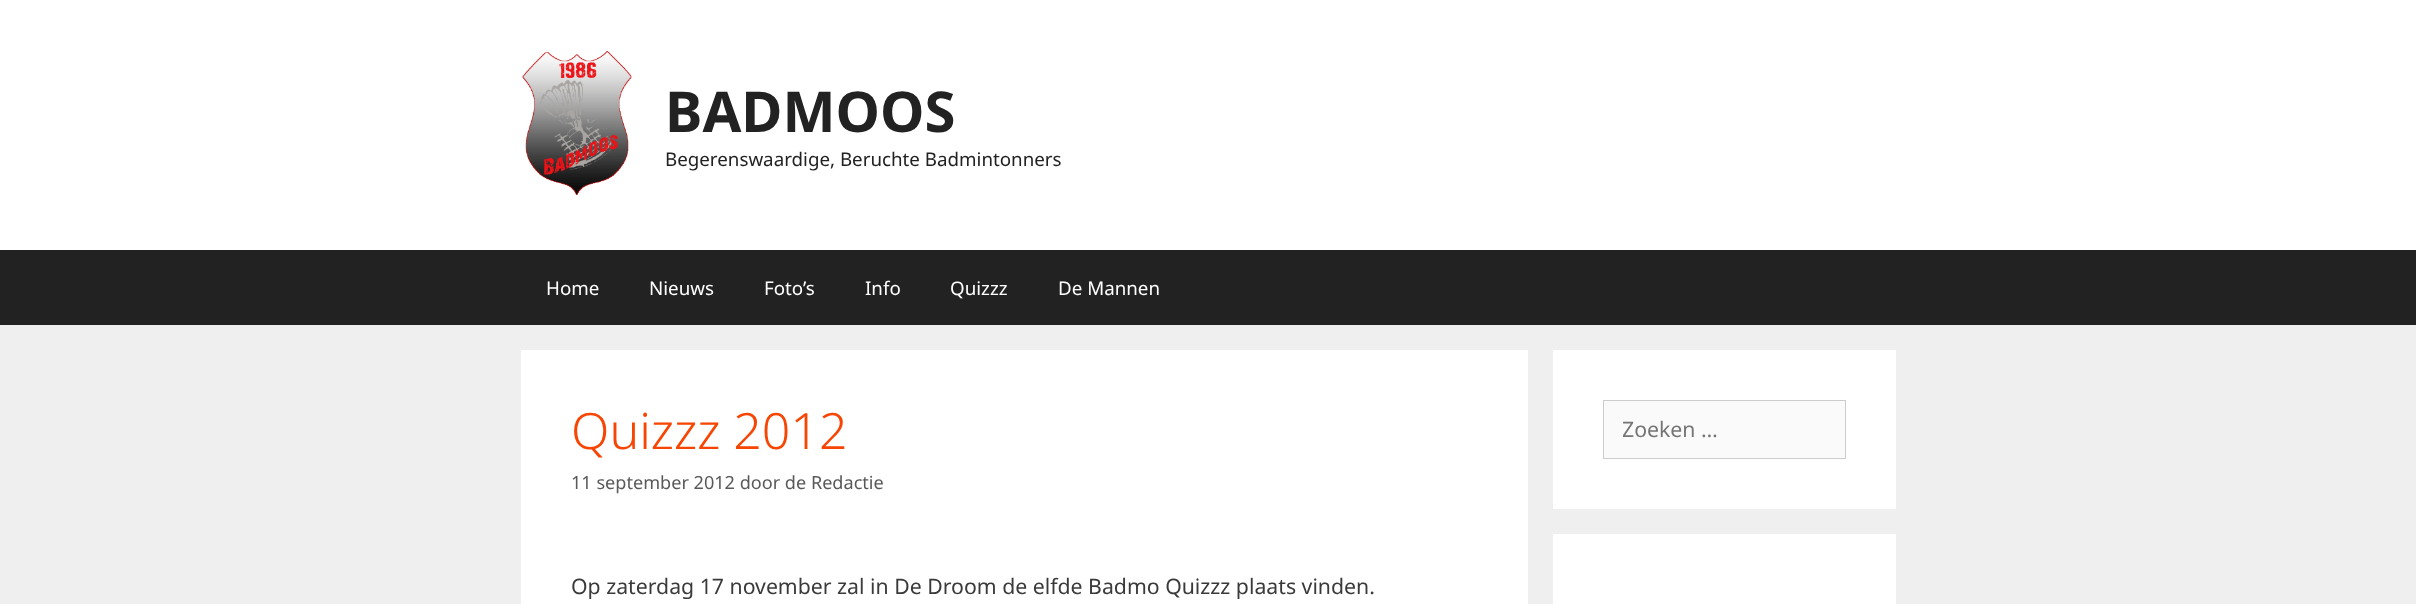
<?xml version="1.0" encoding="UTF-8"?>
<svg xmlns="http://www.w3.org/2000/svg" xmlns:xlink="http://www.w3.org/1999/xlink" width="2416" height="604">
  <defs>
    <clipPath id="clip1"><rect x="1623" y="415" width="183" height="29" /></clipPath>
  </defs>
  <rect width="100%" height="100%" fill="#efefef" />
  <rect width="2416" height="250" fill="#ffffff" />
  <image x="522" y="51" width="110" height="144" xlink:href="image1.png" />
  <rect y="250" width="2416" height="75" fill="#222222" />
  <rect x="521" y="350" width="1007" height="254" fill="#ffffff" />
  <rect x="1553" y="350" width="343" height="159" fill="#ffffff" />
  <rect x="1603.5" y="400.5" width="242" height="58" fill="#fafafa" stroke="#cccccc" />
  <rect x="1553" y="534" width="343" height="70" fill="#ffffff" />
  <text x="665" y="132" style="font-family: Noto Sans; font-size: 56.25px; font-weight: bold; fill: #222222">BADMOOS</text>
  <text x="665" y="166" style="font-family: Noto Sans; font-size: 18.75px; fill: #222222">Begerenswaardige, Beruchte Badmintonners</text>
  <text x="546" y="295" style="font-family: Noto Sans; font-size: 18.75px; fill: #ffffff">Home</text>
  <text x="649" y="295" style="font-family: Noto Sans; font-size: 18.75px; fill: #ffffff">Nieuws</text>
  <text x="764" y="295" style="font-family: Noto Sans; font-size: 18.75px; fill: #ffffff">Foto’s</text>
  <text x="865" y="295" style="font-family: Noto Sans; font-size: 18.75px; fill: #ffffff">Info</text>
  <text x="950" y="295" style="font-family: Noto Sans; font-size: 18.75px; fill: #ffffff">Quizzz</text>
  <text x="1058" y="295" style="font-family: Noto Sans; font-size: 18.75px; fill: #ffffff">De Mannen</text>
  <text x="571" y="449" style="font-family: Noto Sans; font-size: 50px; font-weight: 300; fill: #f74504">Quizzz 2012</text>
  <text x="571" y="489" style="font-family: Noto Sans; font-size: 18.1px; fill: #595959">11 september 2012 door de Redactie</text>
  <text x="571" y="594" style="font-family: Noto Sans; font-size: 21.25px; fill: #3a3a3a">Op zaterdag 17 november zal in De Droom de elfde Badmo Quizzz plaats vinden.</text>
  <g clip-path="url(#clip1)">
    <text x="1622" y="437" style="font-family: Noto Sans; font-size: 21.25px; fill: #757575">Zoeken …</text>
  </g>
</svg>
